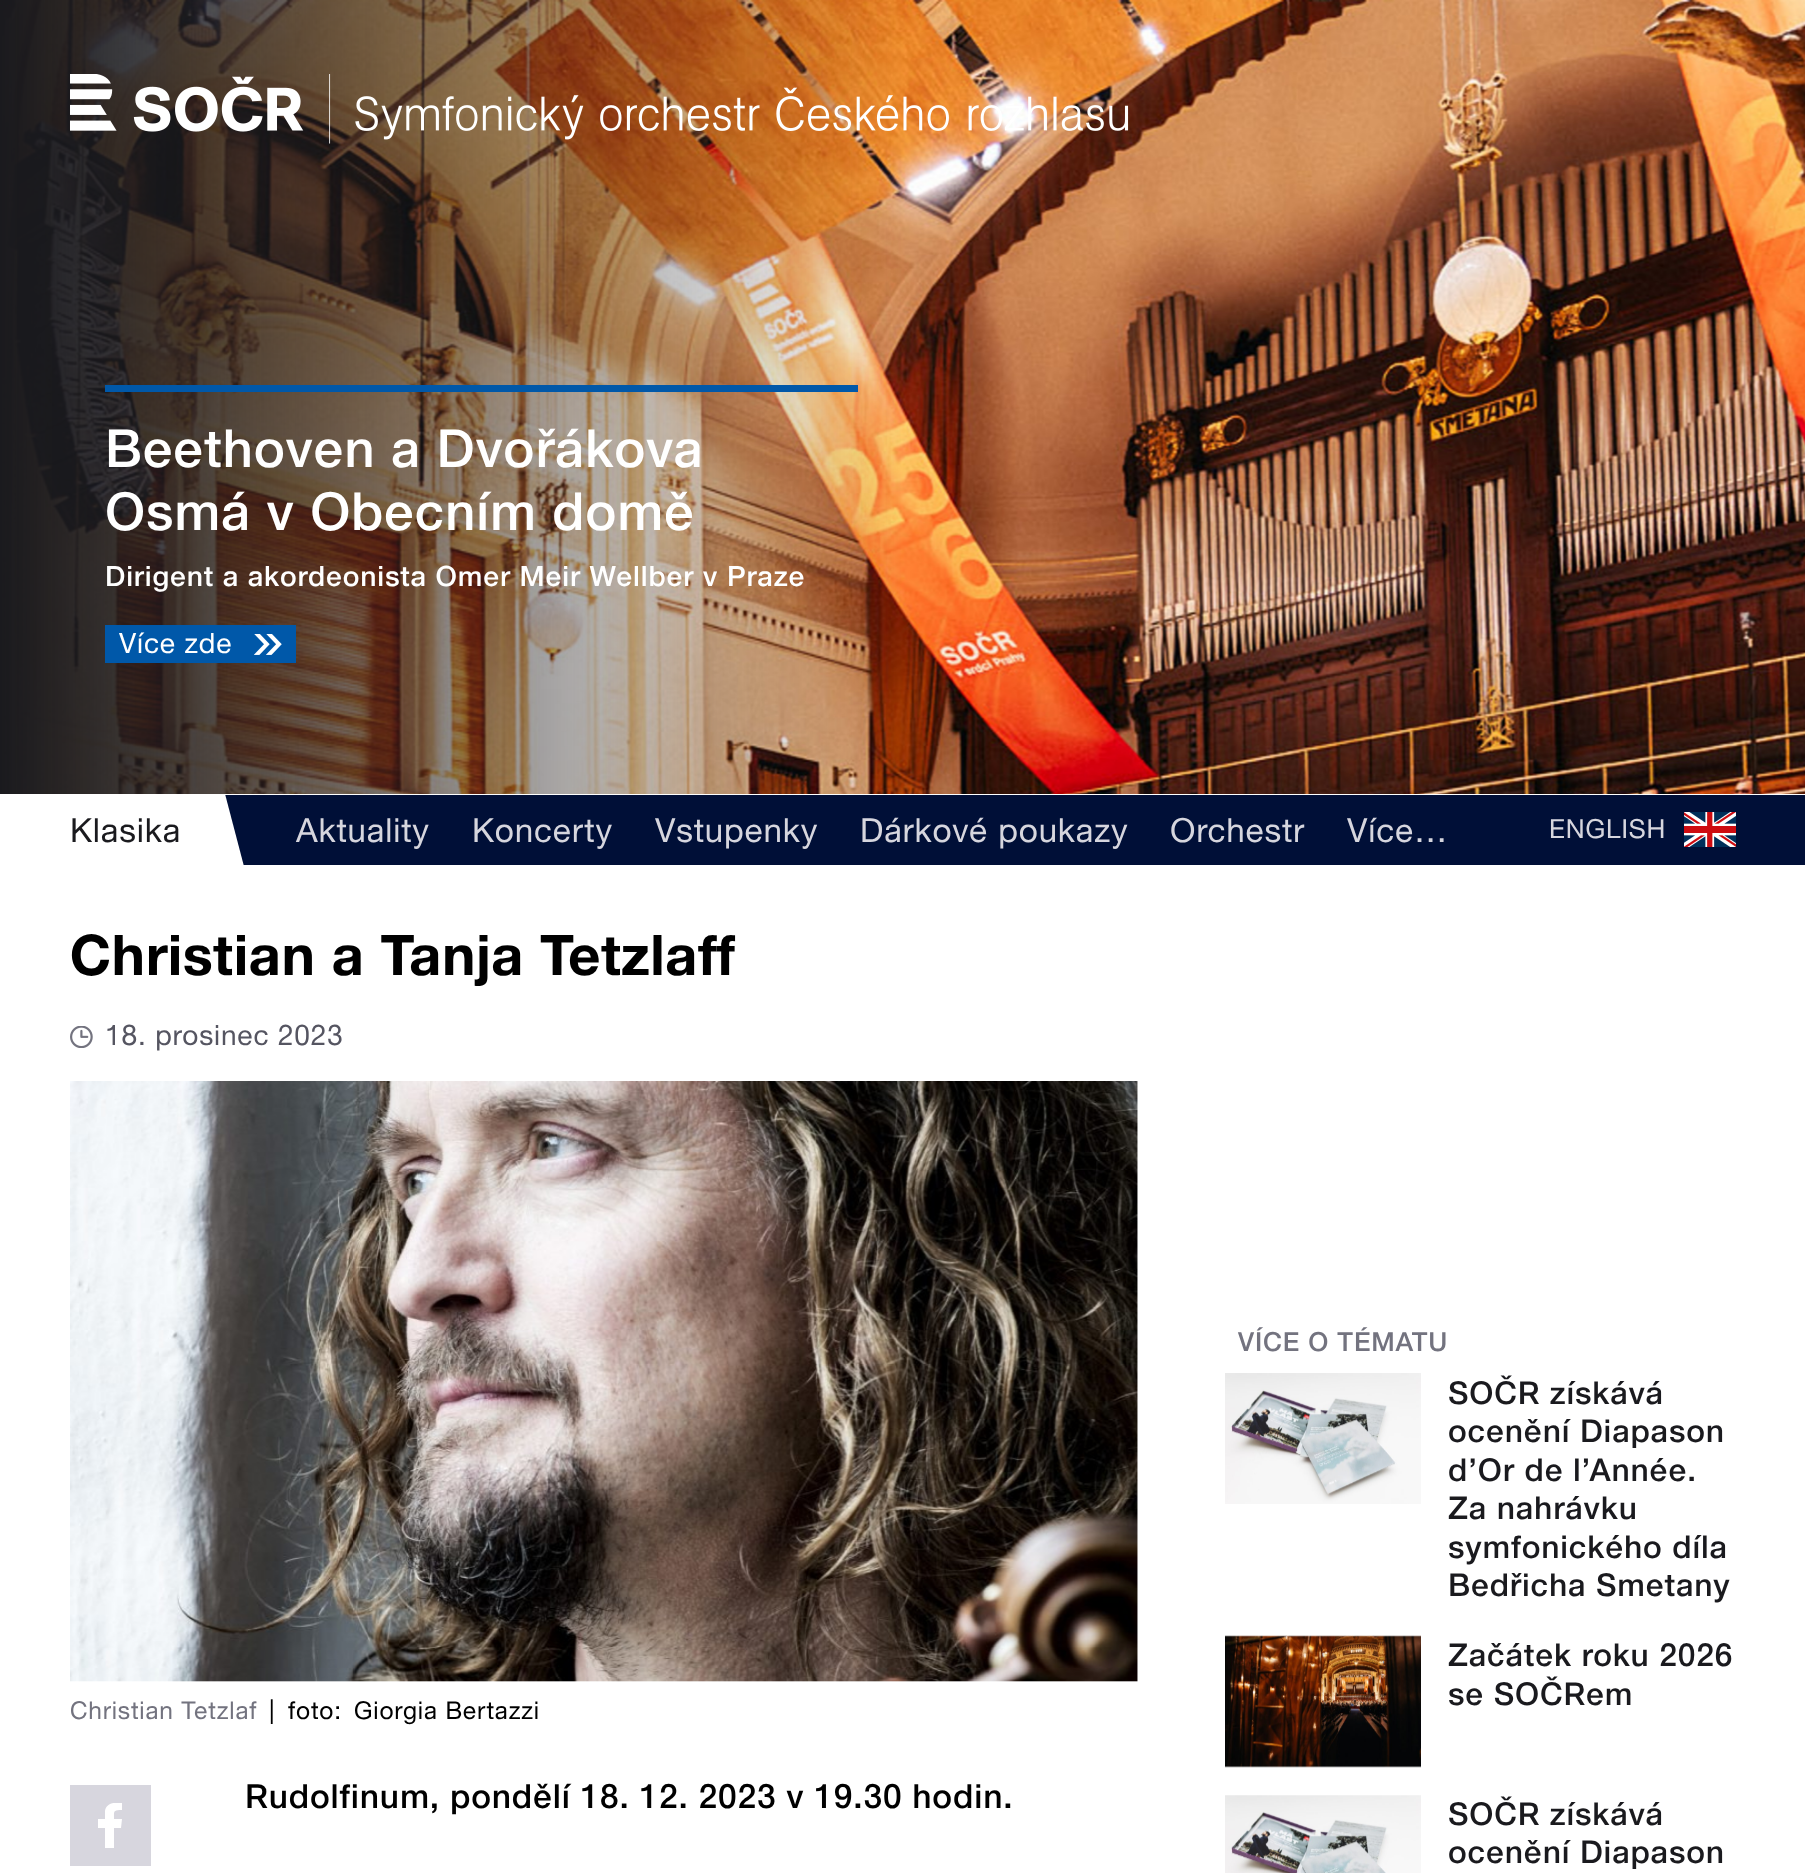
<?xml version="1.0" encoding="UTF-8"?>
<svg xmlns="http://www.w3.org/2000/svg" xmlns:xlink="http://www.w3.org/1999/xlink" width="1805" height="1873">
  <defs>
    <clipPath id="clip1"><rect y="795" width="250" height="70" /></clipPath>
    <clipPath id="clip2"><rect x="98" y="1803" width="25" height="45" /></clipPath>
  </defs>
  <rect width="100%" height="100%" fill="#ffffff" />
  <image x="0" y="0" width="1805" height="794" xlink:href="image1.png" />
  <image x="70" y="74" width="1059" height="70" xlink:href="image2.png" />
  <rect x="105" y="385" width="753" height="7" fill="#0058a9" />
  <rect x="105" y="625" width="191" height="38" fill="#0058a9" />
  <image x="254" y="634" width="28" height="21" xlink:href="image3.png" />
  <g clip-path="url(#clip1)">
    <path d="M 224 790 l 84 -23 l 23 85 l -85 22 z" fill="#000f37" />
  </g>
  <rect x="250" y="795" width="1555" height="70" fill="#000f37" />
  <image x="1684" y="812" width="52" height="35" xlink:href="image4.png" />
  <image x="70" y="1026" width="23" height="22" xlink:href="image5.png" />
  <image x="70" y="1081" width="1068" height="601" xlink:href="image6.png" />
  <rect x="70" y="1785" width="81" height="81" fill="#d7d6de" />
  <g clip-path="url(#clip2)">
    <path d="M 105 1849 v -21 h -7 v -9 h 7 v -8 c 1 -8 10 -9 17 -8 v 7 c -9 0 -8 1 -8 9 h 8 l -1 9 h -7 v 21 z" fill="#ffffff" />
  </g>
  <image x="1225" y="1373" width="196" height="131" xlink:href="image7.png" />
  <image x="1225" y="1635" width="196" height="133" xlink:href="image8.png" />
  <image x="1225" y="1795" width="196" height="78" xlink:href="image9.png" />
  <text x="105" y="467" style="font-family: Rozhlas; font-size: 52.5px; font-weight: 500; letter-spacing: 0.85px; fill: #ffffff">Beethoven a Dvořákova</text>
  <text x="105" y="530" style="font-family: Rozhlas; font-size: 52.5px; font-weight: 500; letter-spacing: 0.85px; fill: #ffffff">Osmá v Obecním domě</text>
  <text x="105" y="586" style="font-family: Rozhlas; font-size: 28px; font-weight: 500; letter-spacing: 0.85px; fill: #ffffff">Dirigent a akordeonista Omer Meir Wellber v Praze</text>
  <text x="119" y="653" style="font-family: Rozhlas; font-size: 28px; letter-spacing: 0.85px; fill: #ffffff">Více zde</text>
  <text x="70" y="842" style="font-family: Rozhlas; font-size: 33.25px; letter-spacing: 0.85px; fill: #1a1a1e">Klasika</text>
  <text x="296" y="842" style="font-family: Rozhlas; font-size: 33.25px; letter-spacing: 0.85px; fill: #d6d6de">Aktuality</text>
  <text x="472" y="842" style="font-family: Rozhlas; font-size: 33.25px; letter-spacing: 0.85px; fill: #d6d6de">Koncerty</text>
  <text x="655" y="842" style="font-family: Rozhlas; font-size: 33.25px; letter-spacing: 0.85px; fill: #d6d6de">Vstupenky</text>
  <text x="860" y="842" style="font-family: Rozhlas; font-size: 33.25px; letter-spacing: 0.85px; fill: #d6d6de">Dárkové poukazy</text>
  <text x="1170" y="842" style="font-family: Rozhlas; font-size: 33.25px; letter-spacing: 0.85px; fill: #d6d6de">Orchestr</text>
  <text x="1347" y="842" style="font-family: Rozhlas; font-size: 33.25px; letter-spacing: 0.85px; fill: #d6d6de">Více…</text>
  <text x="1549" y="838" style="font-family: Rozhlas; font-size: 26.25px; letter-spacing: 0.85px; fill: #d6d6de">ENGLISH</text>
  <text x="70" y="975" style="font-family: Rozhlas; font-size: 56px; font-weight: bold; letter-spacing: 0.85px; fill: #000000">Christian a Tanja Tetzlaff</text>
  <text x="105" y="1045" style="font-family: Rozhlas; font-size: 28px; letter-spacing: 0.85px; fill: #555561">18. prosinec 2023</text>
  <text x="70" y="1719" style="font-family: Rozhlas; font-size: 24.5px; letter-spacing: 0.85px; fill: #73737f">Christian Tetzlaf</text>
  <text x="269" y="1719" style="font-family: Rozhlas; font-size: 24.5px; letter-spacing: 0.85px; fill: #000000">|</text>
  <text x="288" y="1719" style="font-family: Rozhlas; font-size: 24.5px; letter-spacing: 0.85px; fill: #000000">foto:</text>
  <text x="354" y="1719" style="font-family: Rozhlas; font-size: 24.5px; letter-spacing: 0.85px; fill: #000000">Giorgia Bertazzi</text>
  <text x="245" y="1808" word-spacing="-0.25" style="font-family: Rozhlas; font-size: 33.25px; font-weight: 500; letter-spacing: 0.85px; fill: #000000">Rudolfinum, pondělí 18. 12. 2023 v 19.30 hodin.</text>
  <text x="1238" y="1351" style="font-family: Rozhlas; font-size: 26.25px; font-weight: 500; letter-spacing: 0.85px; fill: #73737f">VÍCE O TÉMATU</text>
  <text x="1448" y="1404" style="font-family: Rozhlas; font-size: 31.5px; font-weight: 500; letter-spacing: 0.85px; fill: #1a1a1e">SOČR získává</text>
  <text x="1448" y="1442" style="font-family: Rozhlas; font-size: 31.5px; font-weight: 500; letter-spacing: 0.85px; fill: #1a1a1e">ocenění Diapason</text>
  <text x="1448" y="1481" style="font-family: Rozhlas; font-size: 31.5px; font-weight: 500; letter-spacing: 0.85px; fill: #1a1a1e">d’Or de l’Année.</text>
  <text x="1448" y="1519" style="font-family: Rozhlas; font-size: 31.5px; font-weight: 500; letter-spacing: 0.85px; fill: #1a1a1e">Za nahrávku</text>
  <text x="1448" y="1558" style="font-family: Rozhlas; font-size: 31.5px; font-weight: 500; letter-spacing: 0.85px; fill: #1a1a1e">symfonického díla</text>
  <text x="1448" y="1596" style="font-family: Rozhlas; font-size: 31.5px; font-weight: 500; letter-spacing: 0.85px; fill: #1a1a1e">Bedřicha Smetany</text>
  <text x="1448" y="1666" style="font-family: Rozhlas; font-size: 31.5px; font-weight: 500; letter-spacing: 0.85px; fill: #1a1a1e">Začátek roku 2026</text>
  <text x="1448" y="1705" style="font-family: Rozhlas; font-size: 31.5px; font-weight: 500; letter-spacing: 0.85px; fill: #1a1a1e">se SOČRem</text>
  <text x="1448" y="1825" style="font-family: Rozhlas; font-size: 31.5px; font-weight: 500; letter-spacing: 0.85px; fill: #1a1a1e">SOČR získává</text>
  <text x="1448" y="1863" style="font-family: Rozhlas; font-size: 31.5px; font-weight: 500; letter-spacing: 0.85px; fill: #1a1a1e">ocenění Diapason</text>
</svg>
